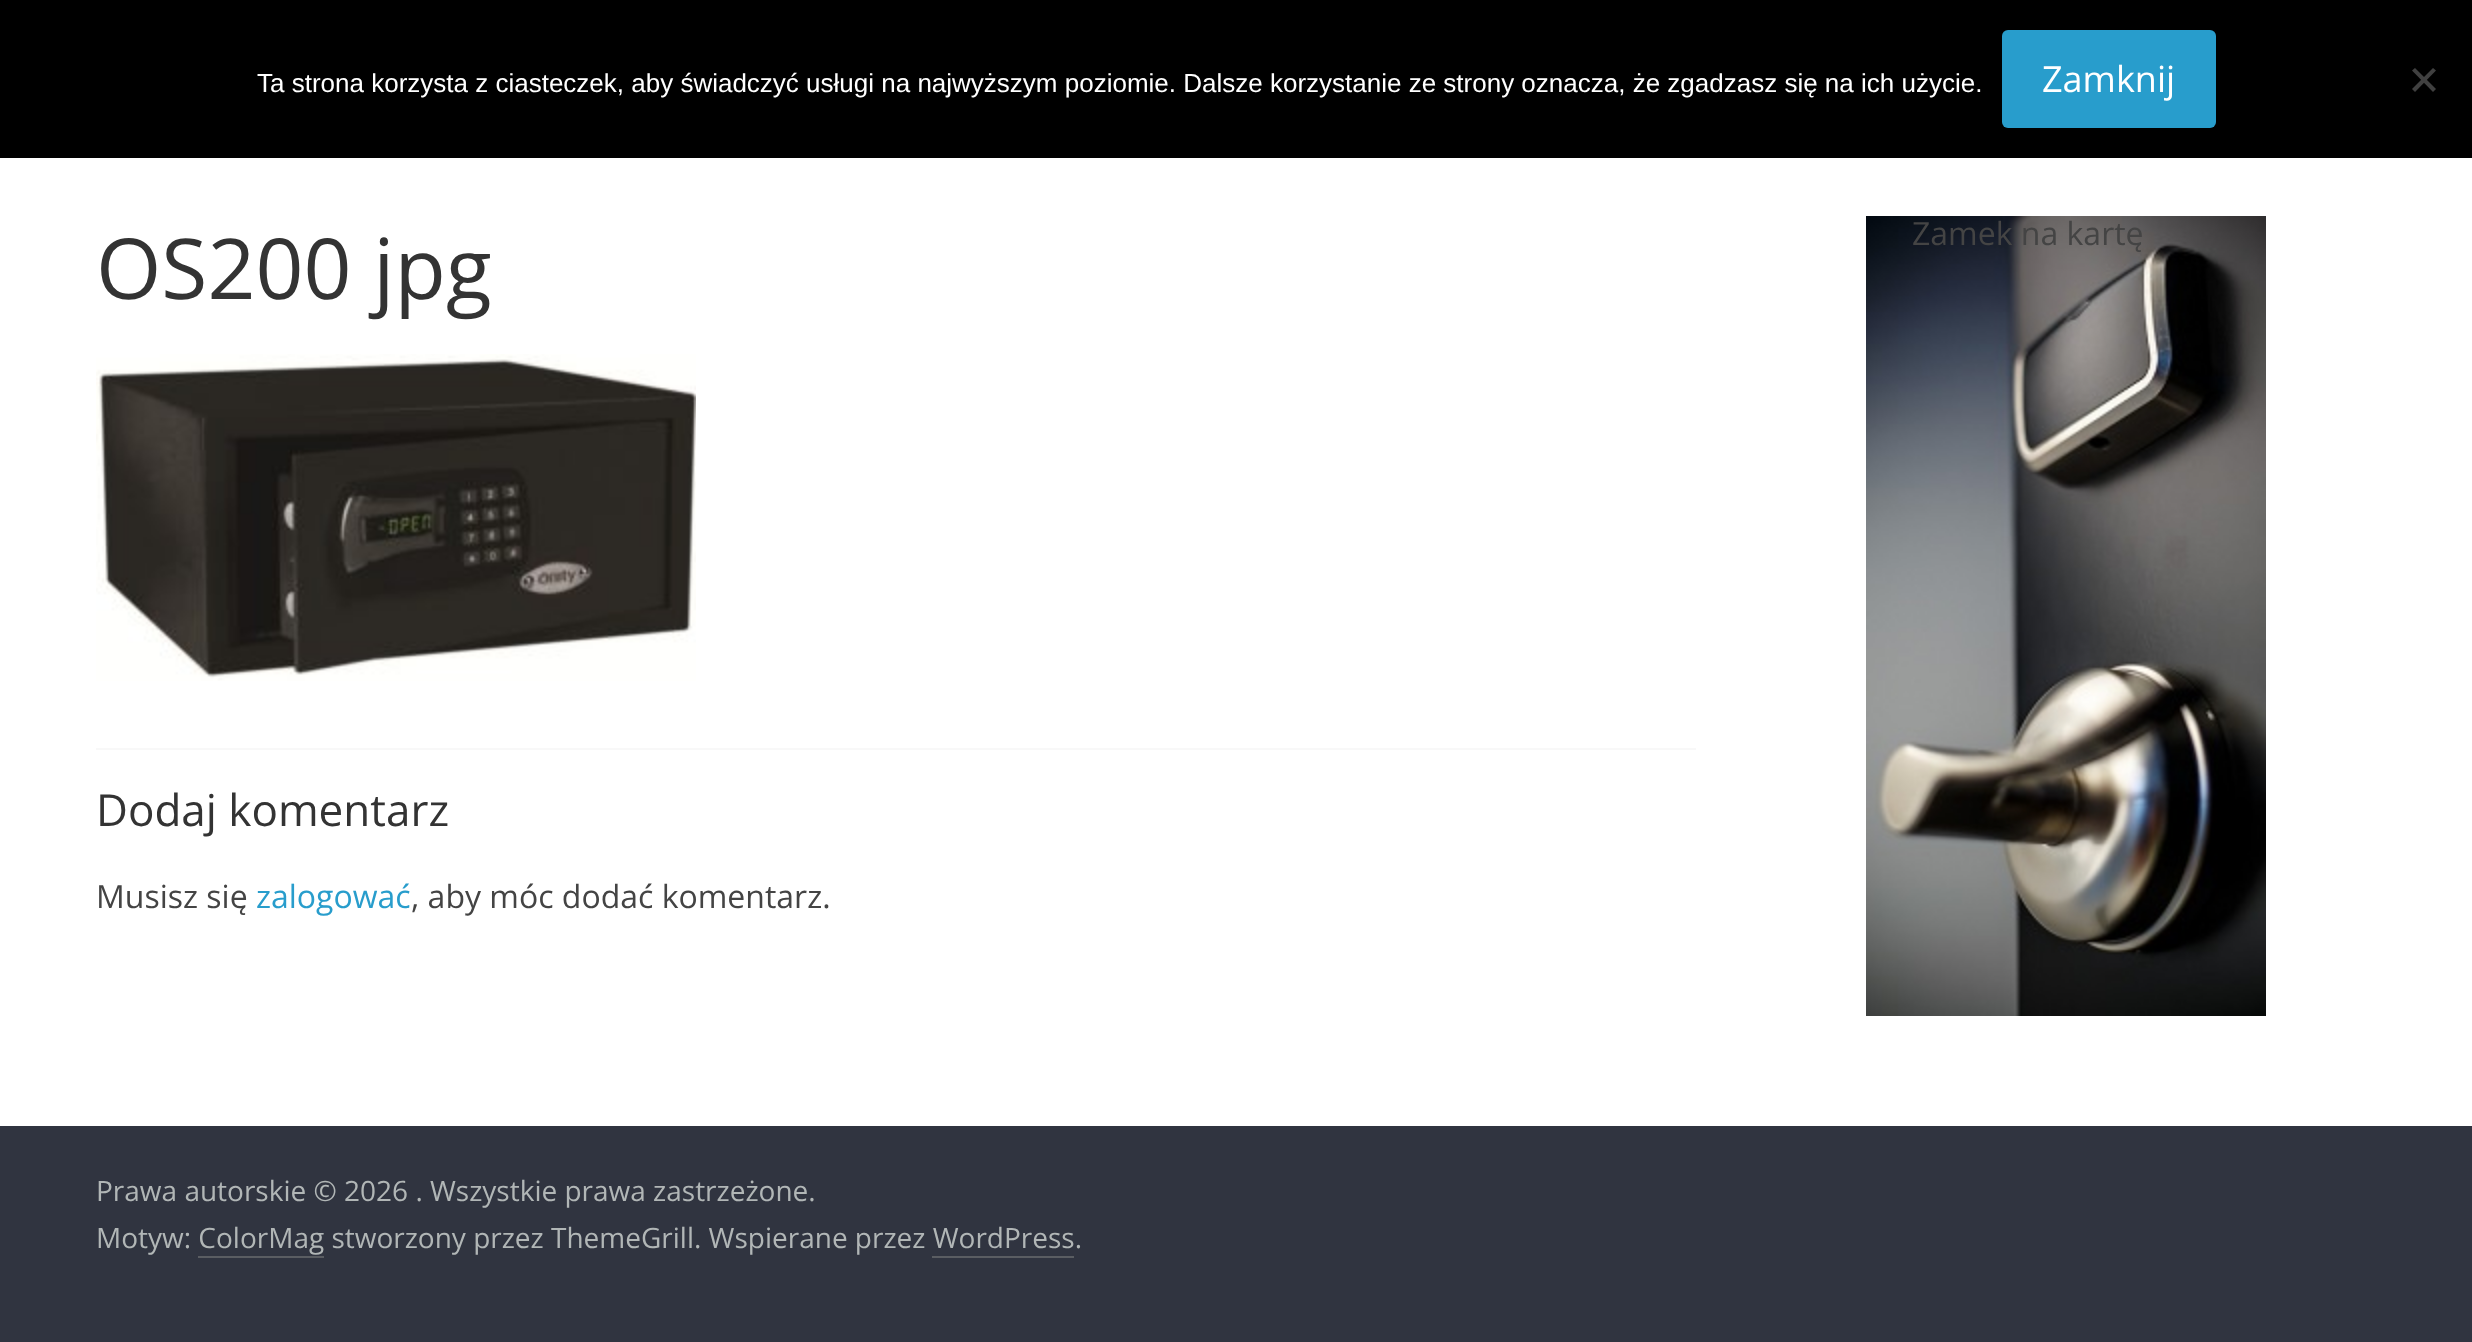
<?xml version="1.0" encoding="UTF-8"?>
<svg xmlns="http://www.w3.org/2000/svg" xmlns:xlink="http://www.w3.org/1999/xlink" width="2472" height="1342">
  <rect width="100%" height="100%" fill="#ffffff" />
  <rect width="2472" height="158" fill="#000000" />
  <rect x="2002" y="30" width="214" height="98" rx="6" fill="#289dcc" />
  <path d="M 2433 68 l 3 2.5 l -21 21.5 l -3 -3 z" fill="#404040" />
  <path d="M 2412 70.5 l 3 -2.5 l 21 21 l -3 3 z" fill="#404040" />
  <image x="96" y="354" width="600" height="327" xlink:href="image1.png" />
  <rect x="96" y="748" width="1600" height="2" fill="#f8f8f8" />
  <image x="1866" y="216" width="400" height="800" xlink:href="image2.png" />
  <rect y="1126" width="2472" height="216" fill="#303440" />
  <rect x="198" y="1256" width="126" height="2" fill="#5a5d62" />
  <rect x="932" y="1256" width="142" height="2" fill="#5a5d62" />
  <text x="257" y="92" style="font-family: Liberation Sans; font-size: 26px; fill: #ffffff">Ta strona korzysta z ciasteczek, aby świadczyć usługi na najwyższym poziomie. Dalsze korzystanie ze strony oznacza, że zgadzasz się na ich użycie.</text>
  <text x="2042" y="92" style="font-family: Open Sans; font-size: 36px; fill: #ffffff">Zamknij</text>
  <text x="96" y="299" style="font-family: Open Sans; font-size: 84px; fill: #333333">OS200 jpg</text>
  <text x="96" y="826" style="font-family: Open Sans; font-size: 44px; fill: #333333">Dodaj komentarz</text>
  <text x="96" y="908" style="font-family: Open Sans; font-size: 32px; fill: #444444">Musisz się</text>
  <text x="256" y="908" style="font-family: Open Sans; font-size: 32px; fill: #289dcc">zalogować</text>
  <text x="411" y="908" style="font-family: Open Sans; font-size: 32px; fill: #444444">, aby móc dodać komentarz.</text>
  <text x="1912" y="245" style="font-family: Open Sans; font-size: 32px; fill: #444444">Zamek na kartę</text>
  <text x="96" y="1201" style="font-family: Open Sans; font-size: 28px; fill: #b1b6b6">Prawa autorskie © 2026 . Wszystkie prawa zastrzeżone.</text>
  <text x="96" y="1248" style="font-family: Open Sans; font-size: 28px; fill: #b1b6b6">Motyw: ColorMag stworzony przez ThemeGrill. Wspierane przez WordPress.</text>
</svg>
